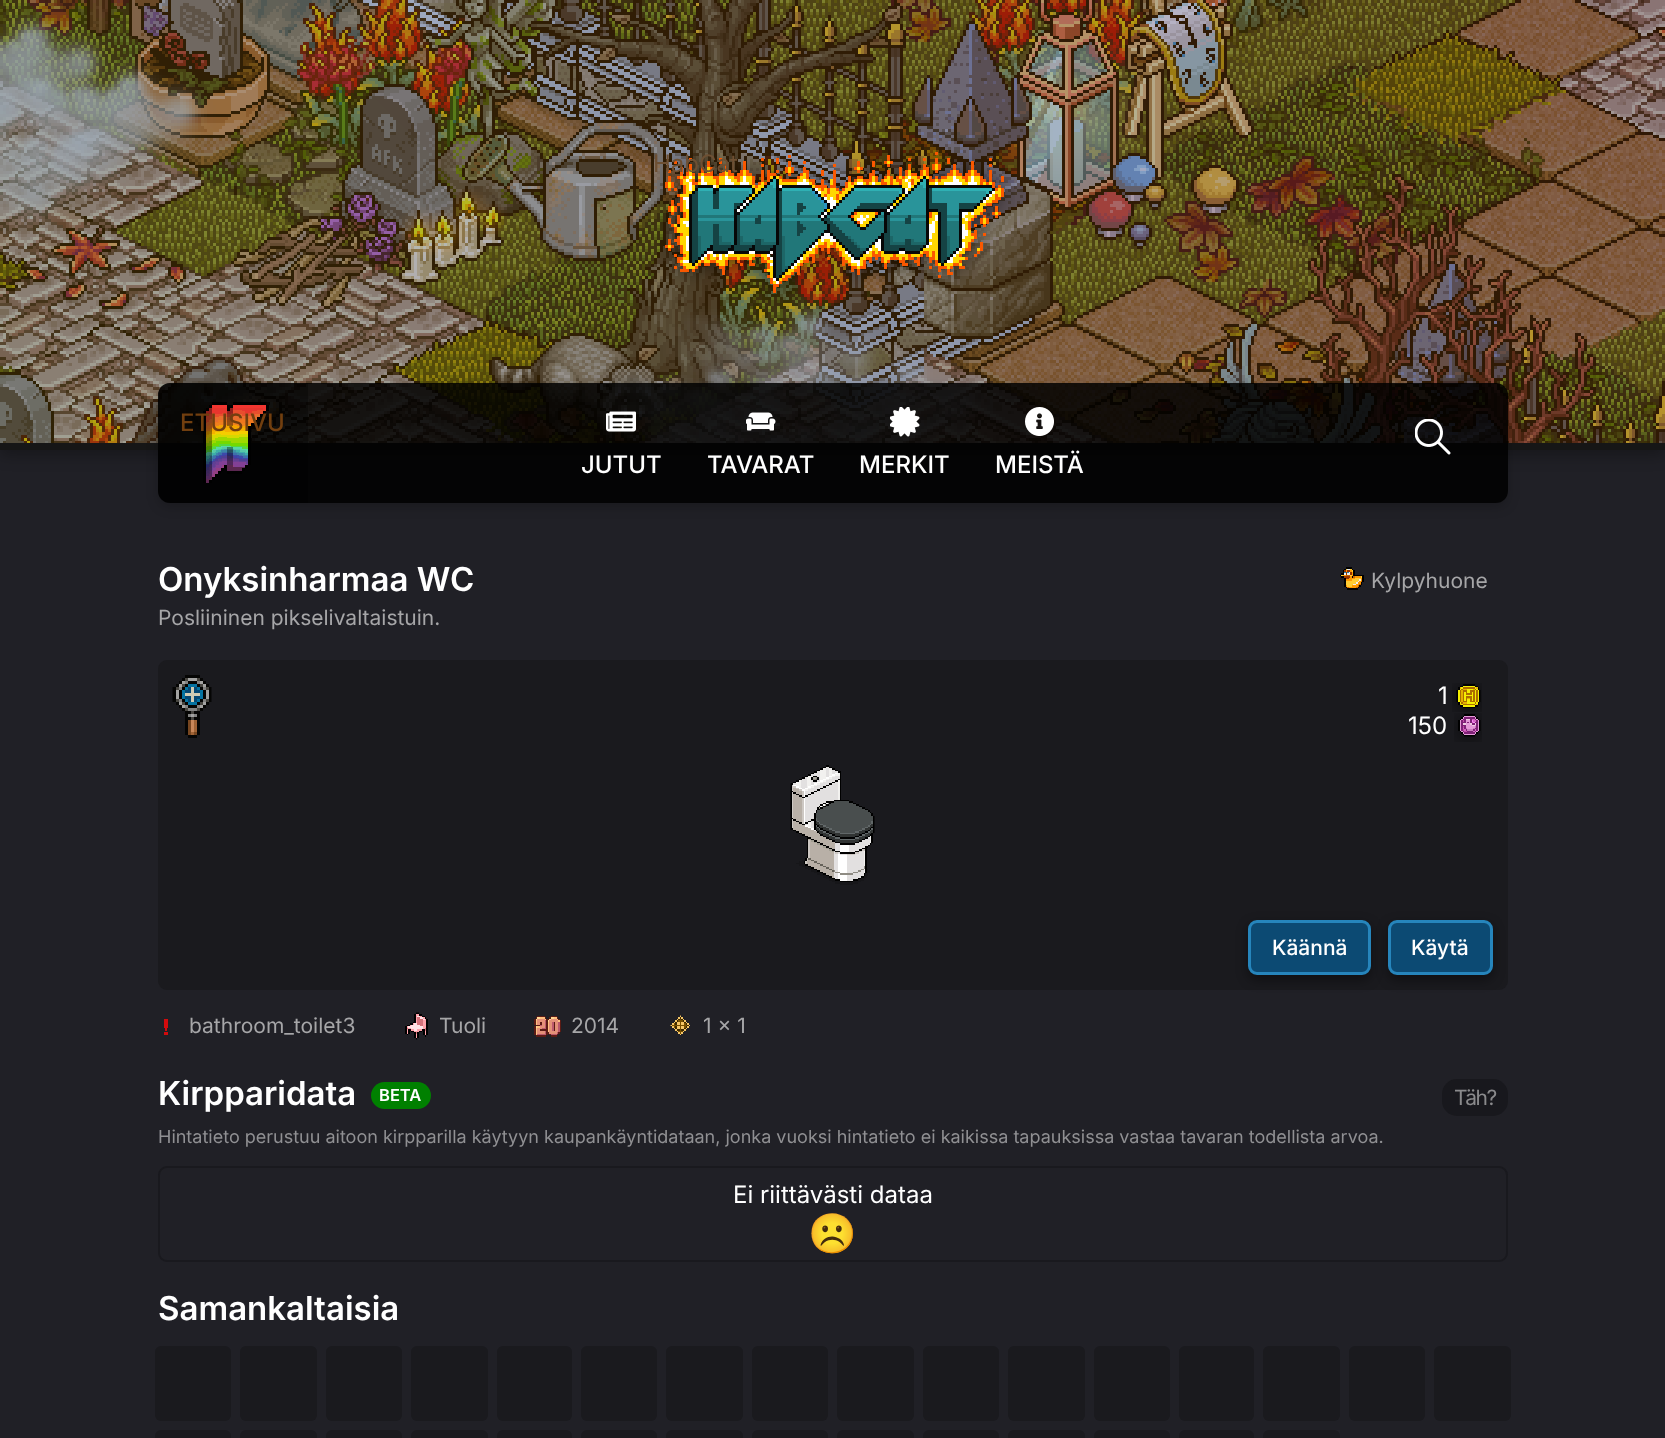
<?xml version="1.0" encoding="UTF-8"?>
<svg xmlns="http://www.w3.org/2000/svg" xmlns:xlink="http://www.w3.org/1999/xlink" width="1665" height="1438">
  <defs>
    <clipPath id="clip1"><path d="M 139 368 h 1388 v 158 h -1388 z m 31 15 h 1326 c 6.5 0 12 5.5 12 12 v 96 c 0 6.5 -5.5 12 -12 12 h -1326 c -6.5 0 -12 -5.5 -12 -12 v -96 c 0 -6.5 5.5 -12 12 -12 z" clip-rule="evenodd" /></clipPath>
  </defs>
  <rect width="100%" height="100%" fill="#202026" />
  <rect y="5" width="1665" height="450" fill="#000000" fill-opacity="0.3" filter="blur(7.5px)" />
  <image x="0" y="0" width="1665" height="443" xlink:href="image1.png" />
  <rect y="443" width="1665" height="7" fill="#161616" />
  <image x="657" y="150" width="358" height="147" xlink:href="image2.png" />
  <g clip-path="url(#clip1)">
    <rect x="158" y="387" width="1350" height="120" rx="12" fill="#000000" fill-opacity="0.2" filter="blur(6px)" />
  </g>
  <rect x="158" y="383" width="1350" height="120" rx="12" fill="#000000" fill-opacity="0.85" />
  <path d="M 170 383 h 138 v 120 h -138 c -6.5 0 -12 -5.5 -12 -12 v -96 c 0 -6.5 5.5 -12 12 -12 z" fill="#000000" fill-opacity="0.3" />
  <image x="203" y="402" width="66" height="81" xlink:href="image3.png" />
  <image x="1415" y="419" width="36" height="36" xlink:href="image4.png" />
  <image x="606" y="411" width="30" height="21" xlink:href="image5.png" />
  <image x="746" y="412" width="30" height="19" xlink:href="image6.png" />
  <image x="890" y="407" width="30" height="30" xlink:href="image7.png" />
  <image x="1025" y="407" width="29" height="29" xlink:href="image8.png" />
  <image x="1340" y="567" width="24" height="23" xlink:href="image9.png" />
  <rect x="158" y="660" width="1350" height="330" rx="9" fill="#1a1a1e" />
  <image x="172" y="675" width="40" height="63" xlink:href="image10.png" />
  <image x="1452" y="683" width="30" height="29" xlink:href="image11.png" />
  <image x="1454" y="713" width="28" height="29" xlink:href="image12.png" />
  <image x="790" y="765" width="85" height="120" xlink:href="image13.png" />
  <rect x="1248" y="924" width="123" height="56" rx="9" fill="#000000" fill-opacity="0.4" filter="blur(6px)" />
  <rect x="1249.5" y="921.5" width="120" height="52" rx="7.5" fill="#0c4a73" stroke="#2685bc" stroke-width="3" />
  <rect x="1388" y="924" width="105" height="56" rx="9" fill="#000000" fill-opacity="0.4" filter="blur(6px)" />
  <rect x="1389.5" y="921.5" width="102" height="52" rx="7.5" fill="#0c4a73" stroke="#2685bc" stroke-width="3" />
  <image x="164" y="1019" width="4" height="16" xlink:href="image14.png" />
  <image x="405" y="1012" width="23" height="28" xlink:href="image15.png" />
  <image x="534" y="1016" width="27" height="21" xlink:href="image16.png" />
  <image x="670" y="1015" width="20" height="20" xlink:href="image17.png" />
  <rect x="371" y="1082" width="60" height="27" rx="13.5" fill="#008000" />
  <rect x="1442" y="1079" width="66" height="37" rx="15" fill="#18181d" />
  <rect x="159" y="1167" width="1348" height="94" rx="8" fill="none" stroke="#19191e" stroke-width="2" />
  <rect x="155" y="1346" width="76" height="75" rx="6" fill="#1a1a1e" />
  <rect x="240" y="1346" width="77" height="75" rx="6" fill="#1a1a1e" />
  <rect x="326" y="1346" width="76" height="75" rx="6" fill="#1a1a1e" />
  <rect x="411" y="1346" width="77" height="75" rx="6" fill="#1a1a1e" />
  <rect x="497" y="1346" width="75" height="75" rx="6" fill="#1a1a1e" />
  <rect x="581" y="1346" width="76" height="75" rx="6" fill="#1a1a1e" />
  <rect x="666" y="1346" width="77" height="75" rx="6" fill="#1a1a1e" />
  <rect x="752" y="1346" width="76" height="75" rx="6" fill="#1a1a1e" />
  <rect x="837" y="1346" width="77" height="75" rx="6" fill="#1a1a1e" />
  <rect x="923" y="1346" width="76" height="75" rx="6" fill="#1a1a1e" />
  <rect x="1008" y="1346" width="77" height="75" rx="6" fill="#1a1a1e" />
  <rect x="1094" y="1346" width="76" height="75" rx="6" fill="#1a1a1e" />
  <rect x="1179" y="1346" width="75" height="75" rx="6" fill="#1a1a1e" />
  <rect x="1263" y="1346" width="77" height="75" rx="6" fill="#1a1a1e" />
  <rect x="1349" y="1346" width="76" height="75" rx="6" fill="#1a1a1e" />
  <rect x="1434" y="1346" width="77" height="75" rx="6" fill="#1a1a1e" />
  <rect x="155" y="1430" width="76" height="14" rx="6" fill="#1a1a1e" />
  <rect x="240" y="1430" width="77" height="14" rx="6" fill="#1a1a1e" />
  <rect x="326" y="1430" width="76" height="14" rx="6" fill="#1a1a1e" />
  <rect x="411" y="1430" width="77" height="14" rx="6" fill="#1a1a1e" />
  <rect x="497" y="1430" width="75" height="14" rx="6" fill="#1a1a1e" />
  <rect x="581" y="1430" width="76" height="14" rx="6" fill="#1a1a1e" />
  <rect x="666" y="1430" width="77" height="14" rx="6" fill="#1a1a1e" />
  <rect x="752" y="1430" width="76" height="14" rx="6" fill="#1a1a1e" />
  <rect x="837" y="1430" width="77" height="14" rx="6" fill="#1a1a1e" />
  <rect x="923" y="1430" width="76" height="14" rx="6" fill="#1a1a1e" />
  <rect x="1008" y="1430" width="77" height="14" rx="6" fill="#1a1a1e" />
  <rect x="1094" y="1430" width="76" height="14" rx="6" fill="#1a1a1e" />
  <rect x="1179" y="1430" width="75" height="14" rx="6" fill="#1a1a1e" />
  <rect x="1263" y="1430" width="77" height="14" rx="6" fill="#1a1a1e" />
  <text x="653" y="172" style="font-family: Inter; font-size: 24px; fill: #6e5033">HabCat</text>
  <text x="180" y="431" style="font-family: Inter; font-size: 24px; font-weight: 500; fill: #723f0f">ETUSIVU</text>
  <text x="581" y="473" style="font-family: Inter; font-size: 24px; font-weight: 500; fill: #ffffff">JUTUT</text>
  <text x="707" y="473" style="font-family: Inter; font-size: 24px; font-weight: 500; fill: #ffffff">TAVARAT</text>
  <text x="859" y="473" style="font-family: Inter; font-size: 24px; font-weight: 500; fill: #ffffff">MERKIT</text>
  <text x="995" y="473" style="font-family: Inter; font-size: 24px; font-weight: 500; fill: #ffffff">MEISTÄ</text>
  <text x="158" y="591" style="font-family: Inter; font-size: 33px; font-weight: 600; fill: #ffffff">Onyksinharmaa WC</text>
  <text x="1371" y="588" style="font-family: Inter; font-size: 21px; fill: #a6a6a8">Kylpyhuone</text>
  <text x="158" y="625" style="font-family: Inter; font-size: 21px; fill: #a6a6a8">Posliininen pikselivaltaistuin.</text>
  <text x="1438" y="704" style="font-family: Inter; font-size: 24px; fill: #ffffff">1</text>
  <text x="1408" y="734" style="font-family: Inter; font-size: 24px; fill: #ffffff">150</text>
  <text x="1272" y="955" style="font-family: Inter; font-size: 21px; font-weight: 500; fill: #ffffff">Käännä</text>
  <text x="1411" y="955" style="font-family: Inter; font-size: 21px; font-weight: 500; fill: #ffffff">Käytä</text>
  <text x="189" y="1033" style="font-family: Inter; font-size: 21px; fill: #a6a6a8">bathroom_toilet3</text>
  <text x="439" y="1033" style="font-family: Inter; font-size: 21px; fill: #a6a6a8">Tuoli</text>
  <text x="571" y="1033" style="font-family: Inter; font-size: 21px; fill: #a6a6a8">2014</text>
  <text x="703" y="1033" style="font-family: Inter; font-size: 21px; fill: #a6a6a8">1 x 1</text>
  <text x="158" y="1105" style="font-family: Inter; font-size: 33px; font-weight: 600; fill: #ffffff">Kirpparidata</text>
  <text x="379" y="1101" style="font-family: Inter; font-size: 16.5px; font-weight: 600; fill: #ffffff">BETA</text>
  <text x="1454" y="1105" style="font-family: Inter; font-size: 21px; letter-spacing: -1.5px; fill: #8a8a8c">Täh?</text>
  <text x="158" y="1143" style="font-family: Inter; font-size: 18px; fill: #909093">Hintatieto perustuu aitoon kirpparilla käytyyn kaupankäyntidataan, jonka vuoksi hintatieto ei kaikissa tapauksissa vastaa tavaran todellista arvoa.</text>
  <text x="733" y="1203" style="font-family: Inter; font-size: 24px; fill: #ffffff">Ei riittävästi dataa</text>
  <text x="808" y="1247" style="font-family: Noto Color Emoji; font-size: 39px; fill: #ffffff">☹️</text>
  <text x="158" y="1320" style="font-family: Inter; font-size: 33px; font-weight: 600; fill: #ffffff">Samankaltaisia</text>
</svg>
